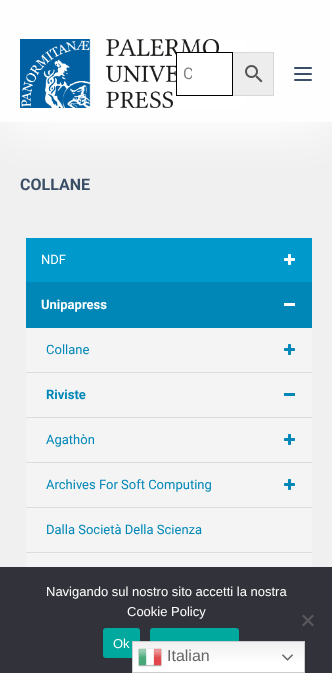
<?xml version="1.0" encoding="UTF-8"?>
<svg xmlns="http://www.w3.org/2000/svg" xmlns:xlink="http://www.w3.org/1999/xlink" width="332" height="673">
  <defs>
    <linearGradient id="g1" gradientUnits="userSpaceOnUse" x1="219" y1="641" x2="219" y2="673"><stop offset="0" stop-color="#efefef" /><stop offset="0.7" stop-color="#ffffff" /></linearGradient>
    <clipPath id="clip1"><rect x="183" y="64" width="9" height="19" /></clipPath>
  </defs>
  <rect width="100%" height="100%" fill="#f0f0f0" />
  <rect y="10" width="332" height="122" fill="#ffffff" filter="blur(25px)" />
  <rect width="332" height="122" fill="#fefefe" />
  <image x="20" y="39" width="226" height="69" xlink:href="image1.png" />
  <rect x="177" y="53" width="55" height="30" fill="#ffffff" />
  <rect x="232.5" y="52.5" width="41" height="43" fill="#ededed" stroke="#d8d8d8" />
  <rect x="176.5" y="52.5" width="56" height="43" fill="none" stroke="#000000" />
  <image x="245" y="65" width="18" height="18" xlink:href="image2.png" />
  <rect x="294" y="67" width="18" height="2" rx="1" fill="#3a4f66" />
  <rect x="294" y="73" width="18" height="2" rx="1" fill="#3a4f66" />
  <rect x="294" y="79" width="18" height="2" rx="1" fill="#3a4f66" />
  <rect x="26" y="238" width="286" height="44" fill="#0099cc" />
  <rect x="26" y="282" width="286" height="46" fill="#0087b7" />
  <image x="284" y="254" width="11" height="11" xlink:href="image3.png" />
  <rect x="284" y="303" width="11" height="3" fill="#ffffff" />
  <rect x="26" y="328" width="286" height="44" fill="#f4f4f4" />
  <rect x="26" y="372" width="286" height="1" fill="#dddddd" />
  <image x="284" y="344" width="11" height="11" xlink:href="image4.png" />
  <rect x="26" y="373" width="286" height="44" fill="#f4f4f4" />
  <rect x="26" y="417" width="286" height="1" fill="#dddddd" />
  <rect x="284" y="393" width="11" height="3" fill="#0087b7" />
  <rect x="26" y="418" width="286" height="44" fill="#f4f4f4" />
  <rect x="26" y="462" width="286" height="1" fill="#dddddd" />
  <image x="284" y="434" width="11" height="11" xlink:href="image4.png" />
  <rect x="26" y="463" width="286" height="44" fill="#f4f4f4" />
  <rect x="26" y="507" width="286" height="1" fill="#dddddd" />
  <image x="284" y="479" width="11" height="11" xlink:href="image4.png" />
  <rect x="26" y="508" width="286" height="44" fill="#f4f4f4" />
  <rect x="26" y="552" width="286" height="1" fill="#dddddd" />
  <rect x="26" y="553" width="286" height="14" fill="#f4f4f4" />
  <rect y="567" width="332" height="106" fill="#32323a" />
  <path d="M 312.5 614.5 l 1.5 1.5 l -10.5 10.5 l -1.5 -1.5 z" fill="#59595d" />
  <path d="M 302 616 l 1.5 -1.5 l 10.5 10.5 l -1.5 1.5 z" fill="#59595d" />
  <rect x="103" y="628" width="37" height="30" rx="3" fill="#00a99d" />
  <rect x="150" y="628" width="89" height="30" rx="3" fill="#00a99d" />
  <rect x="133" y="642" width="171" height="30" fill="url(#g1)" />
  <rect x="132.5" y="641.5" width="172" height="31" fill="none" stroke="#cccccc" />
  <image x="138" y="648" width="24" height="19" xlink:href="image5.png" />
  <image x="282" y="654" width="11" height="7" xlink:href="image6.png" />
  <g clip-path="url(#clip1)">
    <text x="183" y="79" style="font-family: Roboto; font-size: 16px; fill: #838383">C</text>
  </g>
  <text x="20" y="190" style="font-family: Roboto; font-size: 16px; font-weight: bold; fill: #3a4f66">COLLANE</text>
  <text x="41" y="264" style="font-family: Roboto; font-size: 13px; fill: #ffffff">NDF</text>
  <text x="41" y="309" style="font-family: Roboto; font-size: 13px; font-weight: bold; fill: #ffffff">Unipapress</text>
  <text x="46" y="354" style="font-family: Roboto; font-size: 13px; fill: #0087b7">Collane</text>
  <text x="46" y="399" style="font-family: Roboto; font-size: 13px; font-weight: bold; fill: #0087b7">Riviste</text>
  <text x="46" y="444" style="font-family: Roboto; font-size: 13px; fill: #0087b7">Agathòn</text>
  <text x="46" y="489" style="font-family: Roboto; font-size: 13px; fill: #0087b7">Archives For Soft Computing</text>
  <text x="46" y="534" style="font-family: Roboto; font-size: 13px; fill: #0087b7">Dalla Società Della Scienza</text>
  <text x="46" y="596" style="font-family: Liberation Sans; font-size: 13px; fill: #ffffff">Navigando sul nostro sito accetti la nostra</text>
  <text x="127" y="616" style="font-family: Liberation Sans; font-size: 13px; fill: #ffffff">Cookie Policy</text>
  <text x="113" y="648" style="font-family: Liberation Sans; font-size: 13px; fill: #ffffff">Ok</text>
  <text x="167" y="661" style="font-family: Liberation Sans; font-size: 16px; fill: #666666">Italian</text>
</svg>
